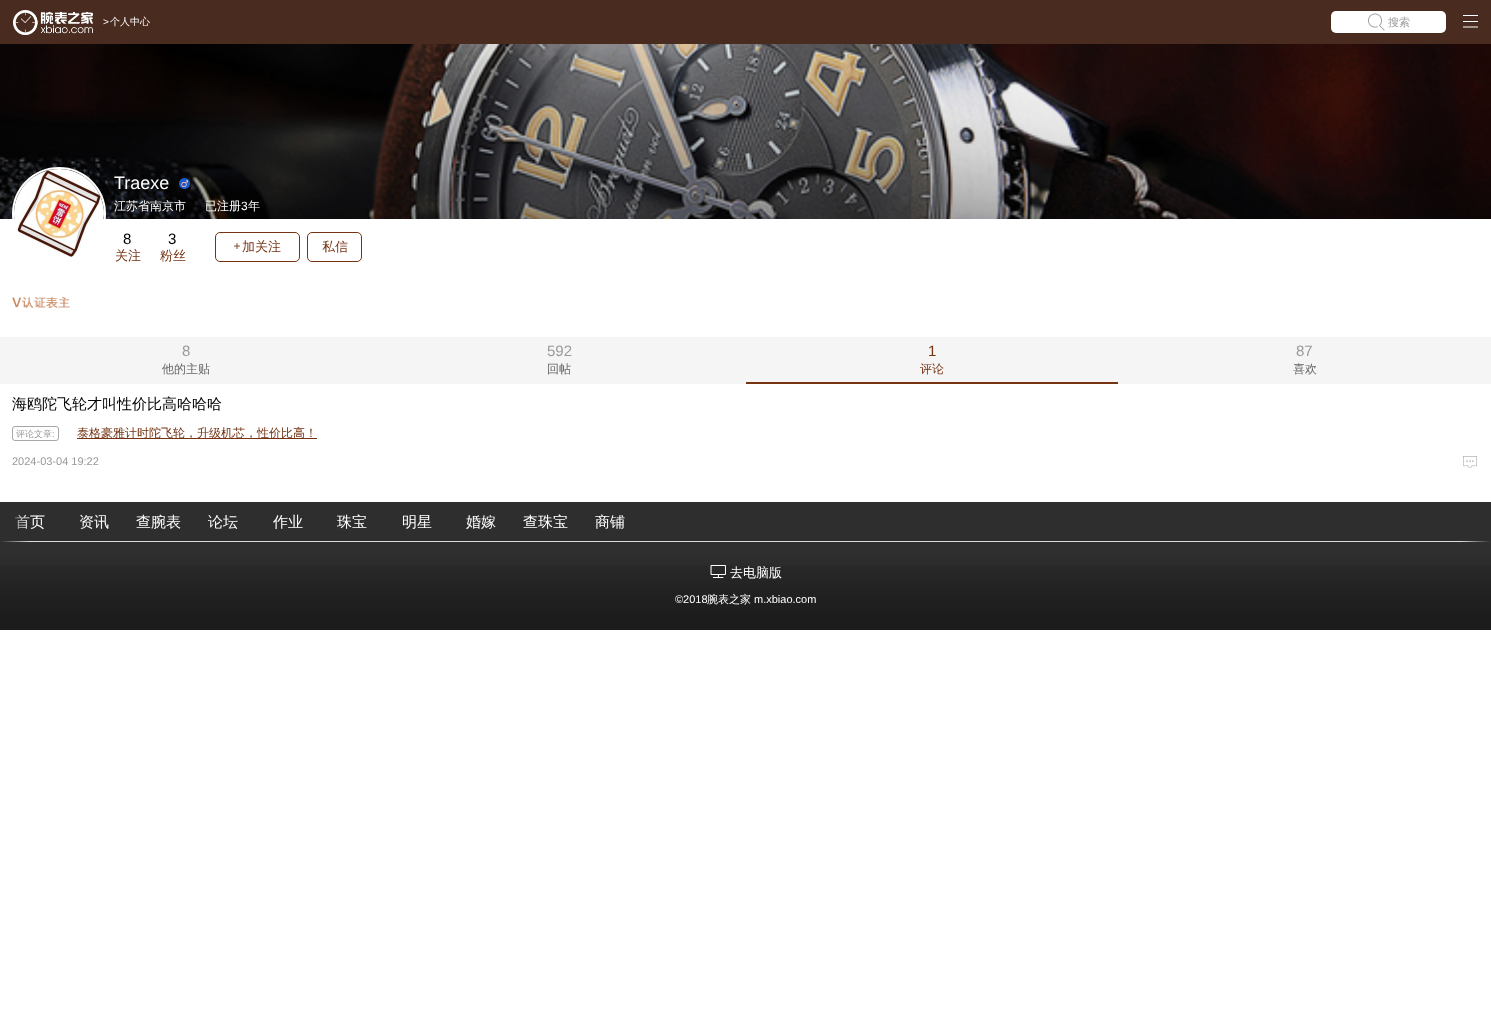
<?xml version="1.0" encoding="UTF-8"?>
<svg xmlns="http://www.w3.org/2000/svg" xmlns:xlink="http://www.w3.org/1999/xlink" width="1491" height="1018">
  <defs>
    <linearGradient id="g1" gradientUnits="userSpaceOnUse" x1="1461" y1="522" x2="1491" y2="522"><stop offset="0" stop-color="#2e2e2e" stop-opacity="0" /><stop offset="1" stop-color="#2e2e2e" /></linearGradient>
    <linearGradient id="g2" gradientUnits="userSpaceOnUse" x1="0" y1="522" x2="30" y2="522"><stop offset="0" stop-color="#2e2e2e" /><stop offset="1" stop-color="#2e2e2e" stop-opacity="0" /></linearGradient>
  </defs>
  <rect width="100%" height="100%" fill="#ffffff" />
  <rect width="1491" height="44" fill="#492c1f" />
  <image x="13" y="10" width="80" height="25" xlink:href="image1.png" />
  <rect x="1331" y="11" width="115" height="22" rx="5" fill="#ffffff" />
  <image x="1368" y="13" width="17" height="18" xlink:href="image2.png" />
  <image x="1463" y="15" width="15" height="13" xlink:href="image3.png" />
  <image x="0" y="44" width="1491" height="175" xlink:href="image4.png" />
  <circle cx="59" cy="214" r="46" fill="none" stroke="#ffffff" stroke-width="2" />
  <image x="14" y="169" width="90" height="88" xlink:href="image5.png" />
  <image x="179" y="178" width="11" height="11" xlink:href="image6.png" />
  <rect x="215.5" y="232.5" width="84" height="29" rx="4.5" fill="none" stroke="#753313" />
  <image x="234" y="243" width="6" height="6" xlink:href="image7.png" />
  <rect x="307.5" y="232.5" width="54" height="29" rx="4.5" fill="none" stroke="#753313" />
  <image x="12" y="297" width="58" height="11" xlink:href="image8.png" />
  <rect y="337" width="1491" height="47" fill="#f5f5f5" />
  <rect x="746" y="382" width="372" height="2" fill="#753313" />
  <rect x="12.5" y="426.5" width="46" height="14" rx="2.5" fill="none" stroke="#a7a7a7" />
  <rect x="77" y="438" width="240" height="1" fill="#753313" />
  <image x="1463" y="456" width="14" height="12" xlink:href="image9.png" />
  <image x="0" y="542" width="1491" height="24" xlink:href="image10.png" />
  <rect y="502" width="1491" height="39" fill="#2e2e2e" />
  <rect y="541" width="1491" height="1" fill="#dcdcdc" />
  <rect x="1462" y="541" width="29" height="1" fill="url(#g1)" />
  <image x="0" y="566" width="1491" height="64" xlink:href="image11.png" />
  <image x="710" y="565" width="16" height="13" xlink:href="image12.png" />
  <text x="103" y="25" style="font-family: Liberation Sans; font-size: 10px; fill: #ffffff">&gt;</text>
  <text x="110" y="25" style="font-family: WenQuanYi Zen Hei; font-size: 10px; font-weight: 500; fill: #ffffff">个人中心</text>
  <text x="1388" y="26" style="font-family: WenQuanYi Zen Hei; font-size: 11px; font-weight: 500; fill: #999999">搜索</text>
  <text x="114" y="189" style="font-family: Liberation Sans; font-size: 18px; fill: #ffffff">Traexe</text>
  <text x="114" y="210" style="font-family: WenQuanYi Zen Hei; font-size: 12px; font-weight: 500; fill: #ffffff">江苏省南京市</text>
  <text x="205" y="210" style="font-family: WenQuanYi Zen Hei; font-size: 12px; font-weight: 500; fill: #ffffff">已注册</text>
  <text x="241" y="210" style="font-family: Liberation Sans; font-size: 12px; fill: #ffffff">3</text>
  <text x="248" y="210" style="font-family: WenQuanYi Zen Hei; font-size: 12px; font-weight: 500; fill: #ffffff">年</text>
  <text x="123" y="244" style="font-family: Liberation Sans; font-size: 15px; fill: #000000">8</text>
  <text x="115" y="260" style="font-family: WenQuanYi Zen Hei; font-size: 13px; font-weight: 500; fill: #753313">关注</text>
  <text x="168" y="244" style="font-family: Liberation Sans; font-size: 15px; fill: #000000">3</text>
  <text x="160" y="260" style="font-family: WenQuanYi Zen Hei; font-size: 13px; font-weight: 500; fill: #753313">粉丝</text>
  <text x="242" y="251" style="font-family: WenQuanYi Zen Hei; font-size: 13px; font-weight: 500; fill: #753313">加关注</text>
  <text x="322" y="251" style="font-family: WenQuanYi Zen Hei; font-size: 13px; font-weight: 500; fill: #753313">私信</text>
  <text x="182" y="356" style="font-family: Liberation Sans; font-size: 15px; fill: #999999">8</text>
  <text x="162" y="373" style="font-family: WenQuanYi Zen Hei; font-size: 12px; font-weight: 500; fill: #666666">他的主贴</text>
  <text x="547" y="356" style="font-family: Liberation Sans; font-size: 15px; fill: #999999">592</text>
  <text x="547" y="373" style="font-family: WenQuanYi Zen Hei; font-size: 12px; font-weight: 500; fill: #666666">回帖</text>
  <text x="928" y="356" style="font-family: Liberation Sans; font-size: 15px; fill: #753313">1</text>
  <text x="920" y="373" style="font-family: WenQuanYi Zen Hei; font-size: 12px; font-weight: 500; fill: #753313">评论</text>
  <text x="1296" y="356" style="font-family: Liberation Sans; font-size: 15px; fill: #999999">87</text>
  <text x="1293" y="373" style="font-family: WenQuanYi Zen Hei; font-size: 12px; font-weight: 500; fill: #666666">喜欢</text>
  <text x="12" y="409" style="font-family: WenQuanYi Zen Hei; font-size: 15px; font-weight: 500; fill: #000000">海鸥陀飞轮才叫性价比高哈哈哈</text>
  <text x="16" y="437" style="font-family: WenQuanYi Zen Hei; font-size: 9px; font-weight: 500; fill: #999999">评论文章</text>
  <text x="52" y="437" style="font-family: Liberation Sans; font-size: 9px; fill: #999999">:</text>
  <text x="77" y="437" style="font-family: WenQuanYi Zen Hei; font-size: 12px; font-weight: 500; fill: #753313">泰格豪雅计时陀飞轮，升级机芯，性价比高！</text>
  <text x="12" y="465" style="font-family: Liberation Sans; font-size: 11px; fill: #999999">2024-03-04 19:22</text>
  <text x="15" y="527" style="font-family: WenQuanYi Zen Hei; font-size: 15px; font-weight: 500; fill: #ffffff">首页</text>
  <rect y="514" width="29" height="28" fill="url(#g2)" />
  <text x="79" y="527" style="font-family: WenQuanYi Zen Hei; font-size: 15px; font-weight: 500; fill: #ffffff">资讯</text>
  <text x="136" y="527" style="font-family: WenQuanYi Zen Hei; font-size: 15px; font-weight: 500; fill: #ffffff">查腕表</text>
  <text x="208" y="527" style="font-family: WenQuanYi Zen Hei; font-size: 15px; font-weight: 500; fill: #ffffff">论坛</text>
  <text x="273" y="527" style="font-family: WenQuanYi Zen Hei; font-size: 15px; font-weight: 500; fill: #ffffff">作业</text>
  <text x="337" y="527" style="font-family: WenQuanYi Zen Hei; font-size: 15px; font-weight: 500; fill: #ffffff">珠宝</text>
  <text x="402" y="527" style="font-family: WenQuanYi Zen Hei; font-size: 15px; font-weight: 500; fill: #ffffff">明星</text>
  <text x="466" y="527" style="font-family: WenQuanYi Zen Hei; font-size: 15px; font-weight: 500; fill: #ffffff">婚嫁</text>
  <text x="523" y="527" style="font-family: WenQuanYi Zen Hei; font-size: 15px; font-weight: 500; fill: #ffffff">查珠宝</text>
  <text x="595" y="527" style="font-family: WenQuanYi Zen Hei; font-size: 15px; font-weight: 500; fill: #ffffff">商铺</text>
  <text x="730" y="577" style="font-family: WenQuanYi Zen Hei; font-size: 13px; font-weight: 500; fill: #ffffff">去电脑版</text>
  <text x="675" y="603" style="font-family: Liberation Sans; font-size: 11px; fill: #ffffff">©2018</text>
  <text x="707" y="603" style="font-family: WenQuanYi Zen Hei; font-size: 11px; font-weight: 500; fill: #ffffff">腕表之家</text>
  <text x="754" y="603" style="font-family: Liberation Sans; font-size: 11px; fill: #ffffff">m.xbiao.com</text>
</svg>
